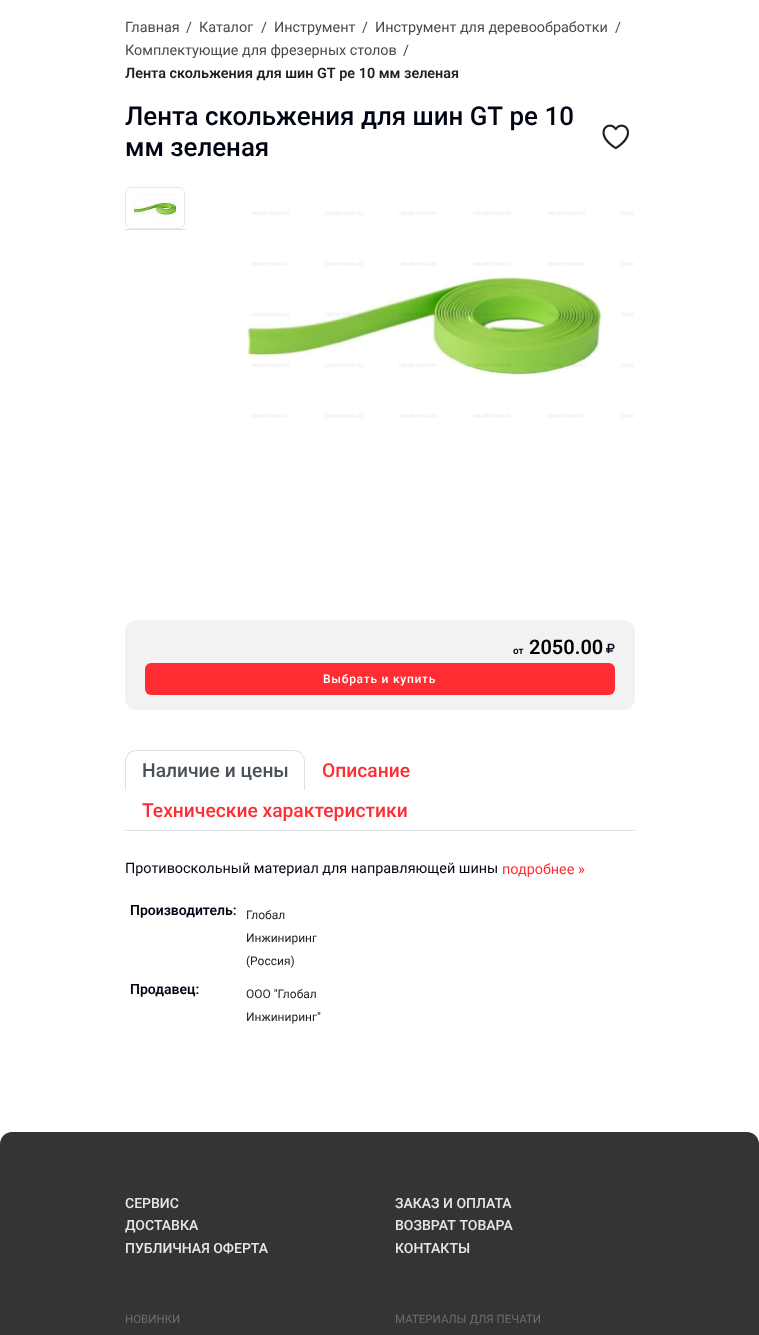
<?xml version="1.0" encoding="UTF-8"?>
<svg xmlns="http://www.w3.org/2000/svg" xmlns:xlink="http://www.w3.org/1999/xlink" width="759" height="1335">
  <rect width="100%" height="100%" fill="#ffffff" />
  <image x="602" y="124" width="27" height="25" xlink:href="image1.png" />
  <rect x="125" y="229" width="60" height="1" fill="#dee2e6" />
  <rect x="125.5" y="187.5" width="59" height="41" rx="5.5" fill="none" stroke="#e6e7e8" />
  <image x="130" y="194" width="50" height="26" xlink:href="image2.png" />
  <image x="247" y="211" width="387" height="207" xlink:href="image3.png" />
  <rect x="125" y="620" width="510" height="90" rx="12" fill="#f3f2f2" />
  <image x="606" y="643" width="9" height="11" xlink:href="image4.png" />
  <rect x="145" y="663" width="470" height="32" rx="6" fill="#ff2d32" />
  <rect x="125" y="830" width="510" height="1" fill="#dee2e6" />
  <path d="M 137 750 c -3 0 -7 1 -9 3 l 1 1 c 2 -2 5 -3 8 -3 h 156 c 3 0 6 1 8 3 l 1 -1 c -2 -2 -6 -3 -9 -3 z" fill="#dee2e6" />
  <path d="M 305 791 v -29 c 0 -3.5 -1 -6.5 -3.5 -8.5 l -0.5 0.5 c 2 2 3 5 3 8 v 28 z" fill="#dee2e6" />
  <path d="M 305 791 l -1 -1 h -178 l -1 1 z" fill="#ffffff" />
  <path d="M 125 791 l 1 -1 v -28 c 0 -3 1 -6 3 -8 l -0.5 -0.5 c -2.5 2 -3.5 5 -3.5 8.5 z" fill="#dee2e6" />
  <path d="M 12 1132 h 735 c 6.5 0 12 5.5 12 12 v 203 h -759 v -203 c 0 -6.5 5.5 -12 12 -12 z" fill="#343434" />
  <text x="125" y="32" style="font-family: Roboto; font-size: 14.4px; fill: #4a4a4a">Главная</text>
  <text x="186" y="32" style="font-family: Roboto; font-size: 14.4px; fill: #4a4a4a">/</text>
  <text x="199" y="32" style="font-family: Roboto; font-size: 14.4px; fill: #4a4a4a">Каталог</text>
  <text x="261" y="32" style="font-family: Roboto; font-size: 14.4px; fill: #4a4a4a">/</text>
  <text x="274" y="32" style="font-family: Roboto; font-size: 14.4px; fill: #4a4a4a">Инструмент</text>
  <text x="362" y="32" style="font-family: Roboto; font-size: 14.4px; fill: #4a4a4a">/</text>
  <text x="375" y="32" style="font-family: Roboto; font-size: 14.4px; fill: #4a4a4a">Инструмент для деревообработки</text>
  <text x="615" y="32" style="font-family: Roboto; font-size: 14.4px; fill: #4a4a4a">/</text>
  <text x="125" y="55" style="font-family: Roboto; font-size: 14.4px; fill: #4a4a4a">Комплектующие для фрезерных столов</text>
  <text x="403" y="55" style="font-family: Roboto; font-size: 14.4px; fill: #4a4a4a">/</text>
  <text x="125" y="78" style="font-family: Roboto; font-size: 14.4px; font-weight: 600; fill: #1f1f1f">Лента скольжения для шин GT pe 10 мм зеленая</text>
  <text x="125" y="125" style="font-family: Roboto; font-size: 25.9px; font-weight: 500; fill: #000412">Лента скольжения для шин GT pe 10</text>
  <text x="125" y="156" style="font-family: Roboto; font-size: 25.9px; font-weight: 500; fill: #000412">мм зеленая</text>
  <text x="513" y="654" style="font-family: Roboto; font-size: 10px; font-weight: 600; fill: #000000">от</text>
  <text x="529" y="654" style="font-family: Roboto; font-size: 20px; font-weight: 600; fill: #000000">2050.00</text>
  <text x="323" y="683" style="font-family: Roboto; font-size: 12px; font-weight: 500; letter-spacing: 0.75px; fill: #ffffff">Выбрать и купить</text>
  <text x="142" y="777" style="font-family: Roboto; font-size: 19.25px; font-weight: 500; fill: #495057">Наличие и цены</text>
  <text x="322" y="777" style="font-family: Roboto; font-size: 19.25px; font-weight: 500; fill: #ff2d32">Описание</text>
  <text x="142" y="817" style="font-family: Roboto; font-size: 19.25px; font-weight: 500; fill: #ff2d32">Технические характеристики</text>
  <text x="125" y="873" style="font-family: Roboto; font-size: 14.4px; fill: #000412">Противоскольный материал для направляющей шины</text>
  <text x="502" y="874" style="font-family: Roboto; font-size: 14.4px; fill: #ff2d32">подробнее »</text>
  <text x="130" y="915" style="font-family: Roboto; font-size: 14px; font-weight: 600; fill: #000412">Производитель:</text>
  <text x="246" y="919" style="font-family: Roboto; font-size: 12px; fill: #1f1f1f">Глобал</text>
  <text x="246" y="942" style="font-family: Roboto; font-size: 12px; fill: #1f1f1f">Инжиниринг</text>
  <text x="246" y="965" style="font-family: Roboto; font-size: 12px; fill: #1f1f1f">(Россия)</text>
  <text x="130" y="994" style="font-family: Roboto; font-size: 14px; font-weight: 600; fill: #000412">Продавец:</text>
  <text x="246" y="998" style="font-family: Roboto; font-size: 12px; fill: #1f1f1f">ООО "Глобал</text>
  <text x="246" y="1021" style="font-family: Roboto; font-size: 12px; fill: #1f1f1f">Инжиниринг"</text>
  <text x="125" y="1208" style="font-family: Roboto; font-size: 14px; font-weight: 500; fill: #e6e7e8">СЕРВИС</text>
  <text x="395" y="1208" style="font-family: Roboto; font-size: 14px; font-weight: 500; fill: #e6e7e8">ЗАКАЗ И ОПЛАТА</text>
  <text x="125" y="1230" style="font-family: Roboto; font-size: 14px; font-weight: 500; fill: #e6e7e8">ДОСТАВКА</text>
  <text x="395" y="1230" word-spacing="1" style="font-family: Roboto; font-size: 14px; font-weight: 500; fill: #e6e7e8">ВОЗВРАТ ТОВАРА</text>
  <text x="125" y="1253" style="font-family: Roboto; font-size: 14px; font-weight: 500; fill: #e6e7e8">ПУБЛИЧНАЯ ОФЕРТА</text>
  <text x="395" y="1253" style="font-family: Roboto; font-size: 14px; font-weight: 500; fill: #e6e7e8">КОНТАКТЫ</text>
  <text x="125" y="1323" style="font-family: Roboto; font-size: 11.5px; fill: #6d6e71">НОВИНКИ</text>
  <text x="395" y="1323" style="font-family: Roboto; font-size: 11.5px; fill: #6d6e71">МАТЕРИАЛЫ ДЛЯ ПЕЧАТИ</text>
</svg>
